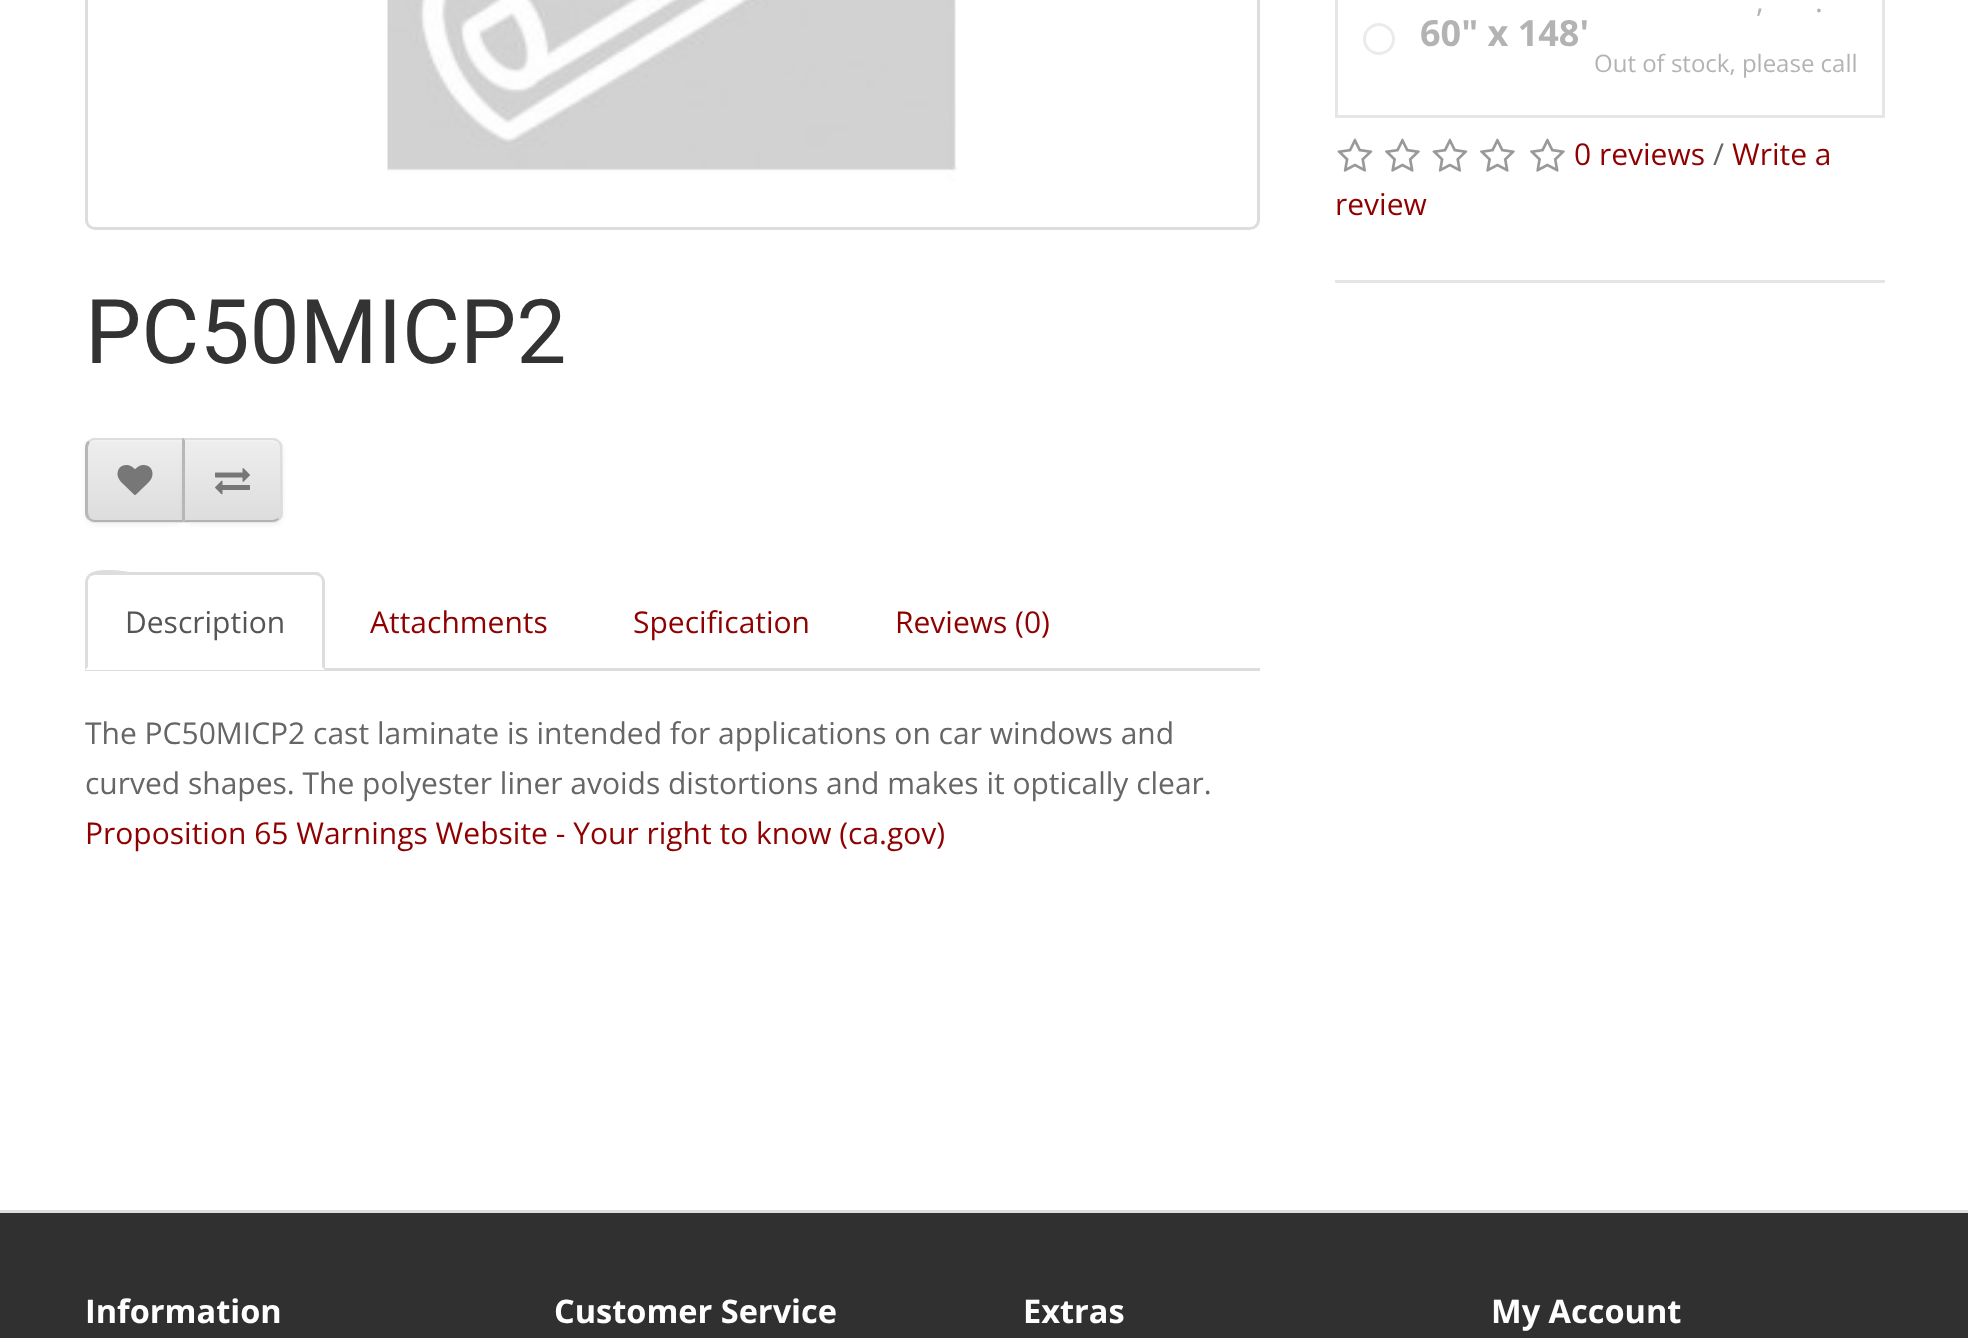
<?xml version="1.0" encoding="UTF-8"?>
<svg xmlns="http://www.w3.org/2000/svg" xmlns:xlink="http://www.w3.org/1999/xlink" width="1968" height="1338">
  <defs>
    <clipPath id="clip1"><path d="M 95 438 h 90 v 85 h -90 c -5.5 0 -10 -4.5 -10 -10 v -65 c 0 -5.5 4.5 -10 10 -10 z" /></clipPath>
    <linearGradient id="g1" gradientUnits="userSpaceOnUse" x1="135" y1="440" x2="135" y2="520"><stop offset="0" stop-color="#eeeeee" /><stop offset="1" stop-color="#dddddd" /></linearGradient>
    <clipPath id="clip2"><path d="M 183 438 h 90 c 5.5 0 10 4.5 10 10 v 65 c 0 5.5 -4.5 10 -10 10 h -90 z" /></clipPath>
    <linearGradient id="g2" gradientUnits="userSpaceOnUse" x1="233" y1="440" x2="233" y2="520"><stop offset="0" stop-color="#eeeeee" /><stop offset="1" stop-color="#dddddd" /></linearGradient>
  </defs>
  <rect width="100%" height="100%" fill="#ffffff" />
  <rect x="1336.5" y="-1.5" width="547" height="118" fill="none" stroke="#e6e6e6" stroke-width="3" />
  <circle cx="1379" cy="39" r="14.5" fill="none" stroke="#ebebeb" stroke-width="3" />
  <image x="1337" y="138" width="36" height="34" xlink:href="image1.png" />
  <image x="1385" y="138" width="35" height="34" xlink:href="image2.png" />
  <image x="1432" y="138" width="36" height="34" xlink:href="image1.png" />
  <image x="1480" y="138" width="35" height="34" xlink:href="image2.png" />
  <image x="1530" y="138" width="35" height="34" xlink:href="image2.png" />
  <rect x="1335" y="280" width="550" height="3" fill="#e5e5e5" />
  <rect x="86.5" y="-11.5" width="1172" height="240" rx="8.5" fill="none" stroke="#dddddd" stroke-width="3" />
  <image x="387" y="0" width="571" height="181" xlink:href="image3.png" />
  <rect x="85" y="440" width="100" height="85" rx="10" fill="#000000" fill-opacity="0.05" filter="blur(2.5px)" />
  <path d="M 95 438 h 90 v 85 h -90 c -5.5 0 -10 -4.5 -10 -10 v -65 c 0 -5.5 4.5 -10 10 -10 z" fill="#e7e7e7" />
  <g clip-path="url(#clip1)">
    <rect x="85" y="440" width="97" height="80" fill="url(#g1)" />
  </g>
  <path d="M 95 442 h 87 v 78 h 1 v -80 h -87 c -4 0 -8 4 -8 8 v 2 c 0 -4 3 -8 7 -8 z" fill="#ffffff" fill-opacity="0.2" />
  <path d="M 95 438 c -3 0 -5 1 -7 3 l 2 1 c 1 -1 3 -2 5 -2 h 87 l 2 -2 z" fill="#dddddd" />
  <path d="M 184 522 h -89 c -3 0 -5 -1 -7 -3 l 2 -1 c 1 1 3 2 5 2 h 87 z" fill="#b3b3b3" />
  <path d="M 85 448 v 64 c 0 3 1 6 3 7 l 2 -1 c -1 -2 -2 -4 -2 -6 v -64 c 0 -2 1 -4 2 -6 l -2 -1 c -2 1 -3 4 -3 7 z" fill="#b7b7b7" />
  <image x="117" y="465" width="36" height="30" xlink:href="image4.png" />
  <rect x="183" y="440" width="100" height="85" rx="10" fill="#000000" fill-opacity="0.05" filter="blur(2.5px)" />
  <path d="M 183 438 h 90 c 5.5 0 10 4.5 10 10 v 65 c 0 5.5 -4.5 10 -10 10 h -90 z" fill="#e7e7e7" />
  <g clip-path="url(#clip2)">
    <rect x="185" y="440" width="98" height="80" fill="url(#g2)" />
  </g>
  <path d="M 185 442 h 87 c 5 0 8 4 8 8 v -2 c 0 -4 -4 -8 -8 -8 h -87 z" fill="#f1f1f1" />
  <path d="M 185 440 h 87 c 2 0 4 1 6 2 l 1 -1 c -1 -2 -4 -3 -7 -3 h -89 z" fill="#dddddd" />
  <path d="M 279 441 c 2 1 3 4 3 7 v 64 c 0 3 -1 6 -3 7 l -1 -1 c 1 -2 2 -4 2 -6 v -64 c 0 -2 -1 -4 -2 -6 z" fill="#dddddd" />
  <path d="M 279 519 c -1 2 -4 3 -7 3 h -89 l 2 -2 h 87 c 2 0 4 -1 6 -2 z" fill="#b3b3b3" />
  <path d="M 185 440 v 80 l -3 2 v -84 h 1 z" fill="#b7b7b7" />
  <image x="215" y="468" width="35" height="27" xlink:href="image5.png" />
  <rect x="85" y="668" width="1175" height="3" fill="#dddddd" />
  <path d="M 95 573 h 220 c 5.5 0 10 4.5 10 10 v 87 h -240 v -87 c 0 -5.5 4.5 -10 10 -10 z" fill="#ffffff" />
  <path d="M 95 575 c -2 0 -4 1 -5 2 l -2 -2 c 8 -9 41 -3 42 -3 h 188 l 4 3 l -2 2 c -1 -1 -3 -2 -5 -2 z" fill="#dddddd" />
  <path d="M 325 670 v -88 c 0 -2 -1 -5 -3 -7 l -2 2 c 1 1 2 3 2 5 v 85 z" fill="#dddddd" />
  <path d="M 85 670 l 3 -3 v -85 c 0 -2 1 -4 2 -5 l -2 -2 c -2 2 -3 5 -3 7 z" fill="#dddddd" />
  <rect y="1213" width="1968" height="125" fill="#303030" />
  <rect y="1210" width="1968" height="3" fill="#dddddd" />
  <text x="1420" y="46" style="font-family: Open Sans; font-size: 36px; font-weight: bold; fill: #b3b3b3">60" x 148'</text>
  <text x="1756" y="12" style="font-family: Open Sans; font-size: 30px; fill: #b3b3b3">,</text>
  <text x="1815" y="12" style="font-family: Open Sans; font-size: 30px; fill: #b3b3b3">.</text>
  <text x="1594" y="72" style="font-family: Open Sans; font-size: 24px; fill: #b3b3b3">Out of stock, please call</text>
  <text x="1574" y="165" style="font-family: Open Sans; font-size: 30px; fill: #8f0000">0 reviews</text>
  <text x="1713" y="165" style="font-family: Open Sans; font-size: 30px; fill: #666666">/</text>
  <text x="1732" y="165" style="font-family: Open Sans; font-size: 30px; fill: #8f0000">Write a</text>
  <text x="1335" y="215" style="font-family: Open Sans; font-size: 30px; fill: #8f0000">review</text>
  <text x="85" y="363" style="font-family: Roboto; font-size: 89.25px; fill: #333333">PC50MICP2</text>
  <text x="125" y="633" style="font-family: Open Sans; font-size: 30px; fill: #555555">Description</text>
  <text x="370" y="633" style="font-family: Open Sans; font-size: 30px; fill: #8f0000">Attachments</text>
  <text x="633" y="633" style="font-family: Open Sans; font-size: 30px; fill: #8f0000">Specification</text>
  <text x="895" y="633" style="font-family: Open Sans; font-size: 30px; fill: #8f0000">Reviews (0)</text>
  <text x="85" y="744" style="font-family: Open Sans; font-size: 30px; fill: #666666">The PC50MICP2 cast laminate is intended for applications on car windows and</text>
  <text x="85" y="794" style="font-family: Open Sans; font-size: 30px; fill: #666666">curved shapes. The polyester liner avoids distortions and makes it optically clear.</text>
  <text x="85" y="844" style="font-family: Open Sans; font-size: 30px; fill: #8f0000">Proposition 65 Warnings Website - Your right to know (ca.gov)</text>
  <text x="85" y="1323" style="font-family: Open Sans; font-size: 32.5px; font-weight: bold; fill: #ffffff">Information</text>
  <text x="554" y="1323" style="font-family: Open Sans; font-size: 32.5px; font-weight: bold; fill: #ffffff">Customer Service</text>
  <text x="1023" y="1323" style="font-family: Open Sans; font-size: 32.5px; font-weight: bold; fill: #ffffff">Extras</text>
  <text x="1491" y="1323" style="font-family: Open Sans; font-size: 32.5px; font-weight: bold; fill: #ffffff">My Account</text>
</svg>
